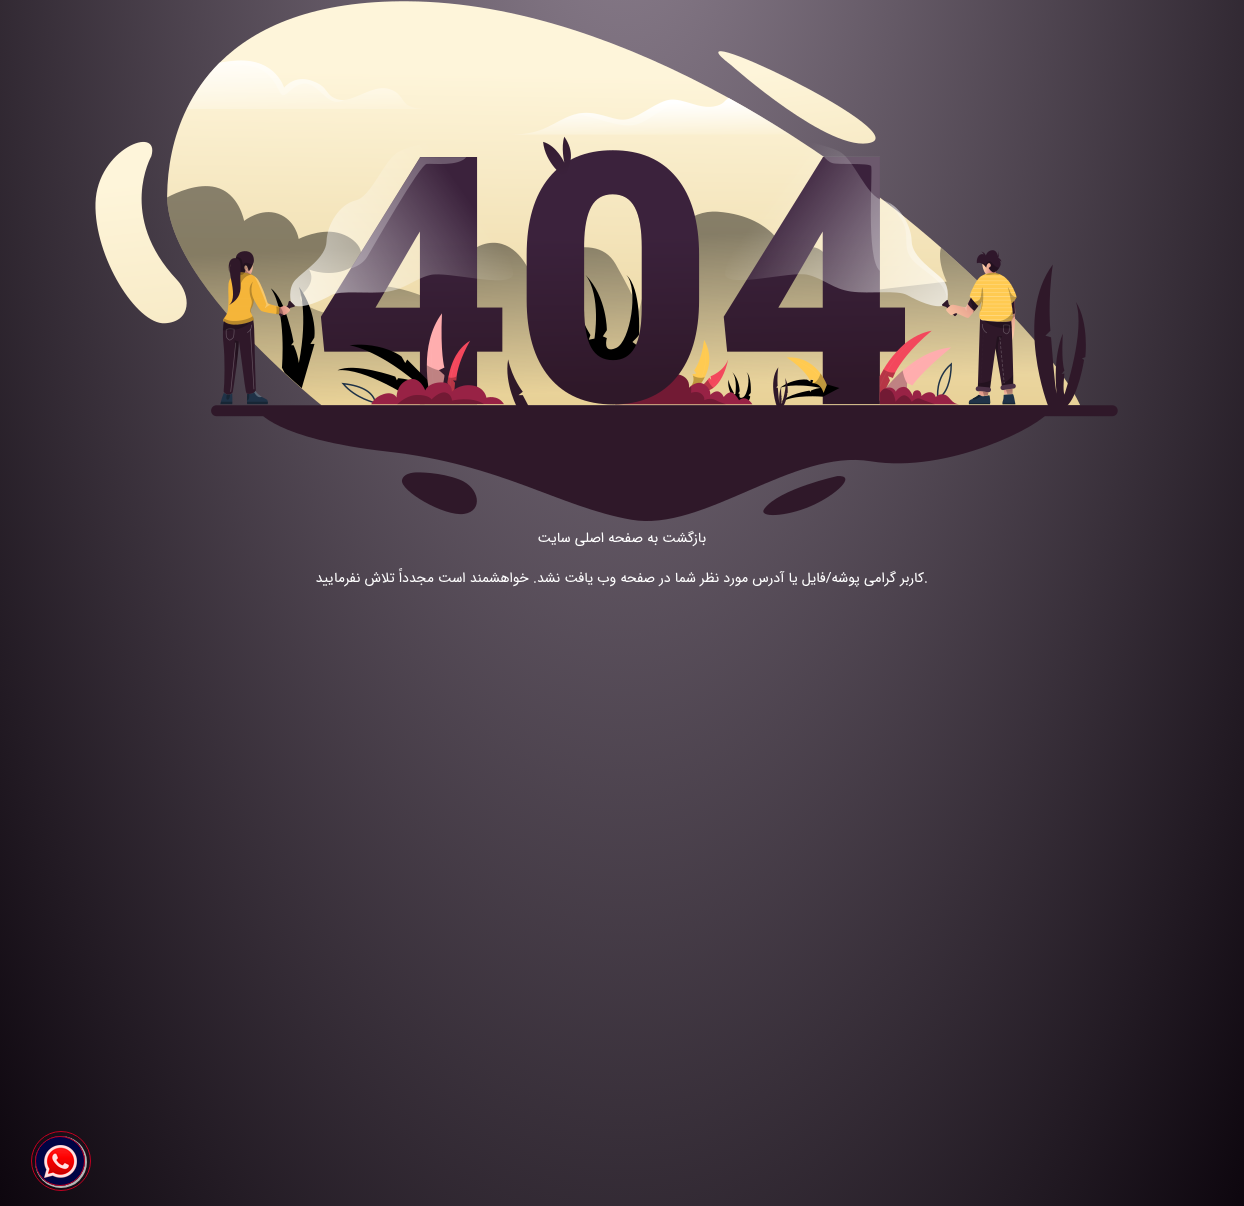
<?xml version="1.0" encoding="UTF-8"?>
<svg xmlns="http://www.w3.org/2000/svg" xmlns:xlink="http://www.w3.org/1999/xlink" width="1244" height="1206">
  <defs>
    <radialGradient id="g1" gradientUnits="userSpaceOnUse" cx="0" cy="0" r="1" gradientTransform="matrix(880 0 0 2047 622 -241)"><stop offset="0" stop-color="#908392" /><stop offset="1" stop-color="#0d060e" /></radialGradient>
  </defs>
  <rect width="100%" height="100%" fill="#ffffff" />
  <rect width="1244" height="1206" fill="url(#g1)" />
  <image x="95" y="1" width="1023" height="520" xlink:href="image1.png" />
  <rect x="35" y="1136" width="52" height="52" rx="26" fill="#b5b5b5" filter="blur(0.5px)" />
  <circle cx="60" cy="1161" r="25" fill="#000344" />
  <image x="44" y="1145" width="33" height="33" xlink:href="image2.png" />
  <circle cx="60" cy="1161" r="24.5" fill="none" stroke="#c30021" />
  <circle cx="61" cy="1161" r="29.5" fill="none" stroke="#c30021" />
  <text x="706" y="542" style="font-family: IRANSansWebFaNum; font-size: 14px; direction: rtl; fill: #ffffff">بازگشت به صفحه اصلی سایت</text>
  <text x="924" y="582" style="font-family: IRANSansWebFaNum; font-size: 14px; fill: #ffffff">.</text>
  <text x="924" y="582" style="font-family: IRANSansWebFaNum; font-size: 14px; direction: rtl; fill: #ffffff">کاربر گرامی پوشه/فایل یا آدرس مورد نظر شما در صفحه وب یافت نشد. خواهشمند است مجدداً تلاش نفرمایید</text>
</svg>
